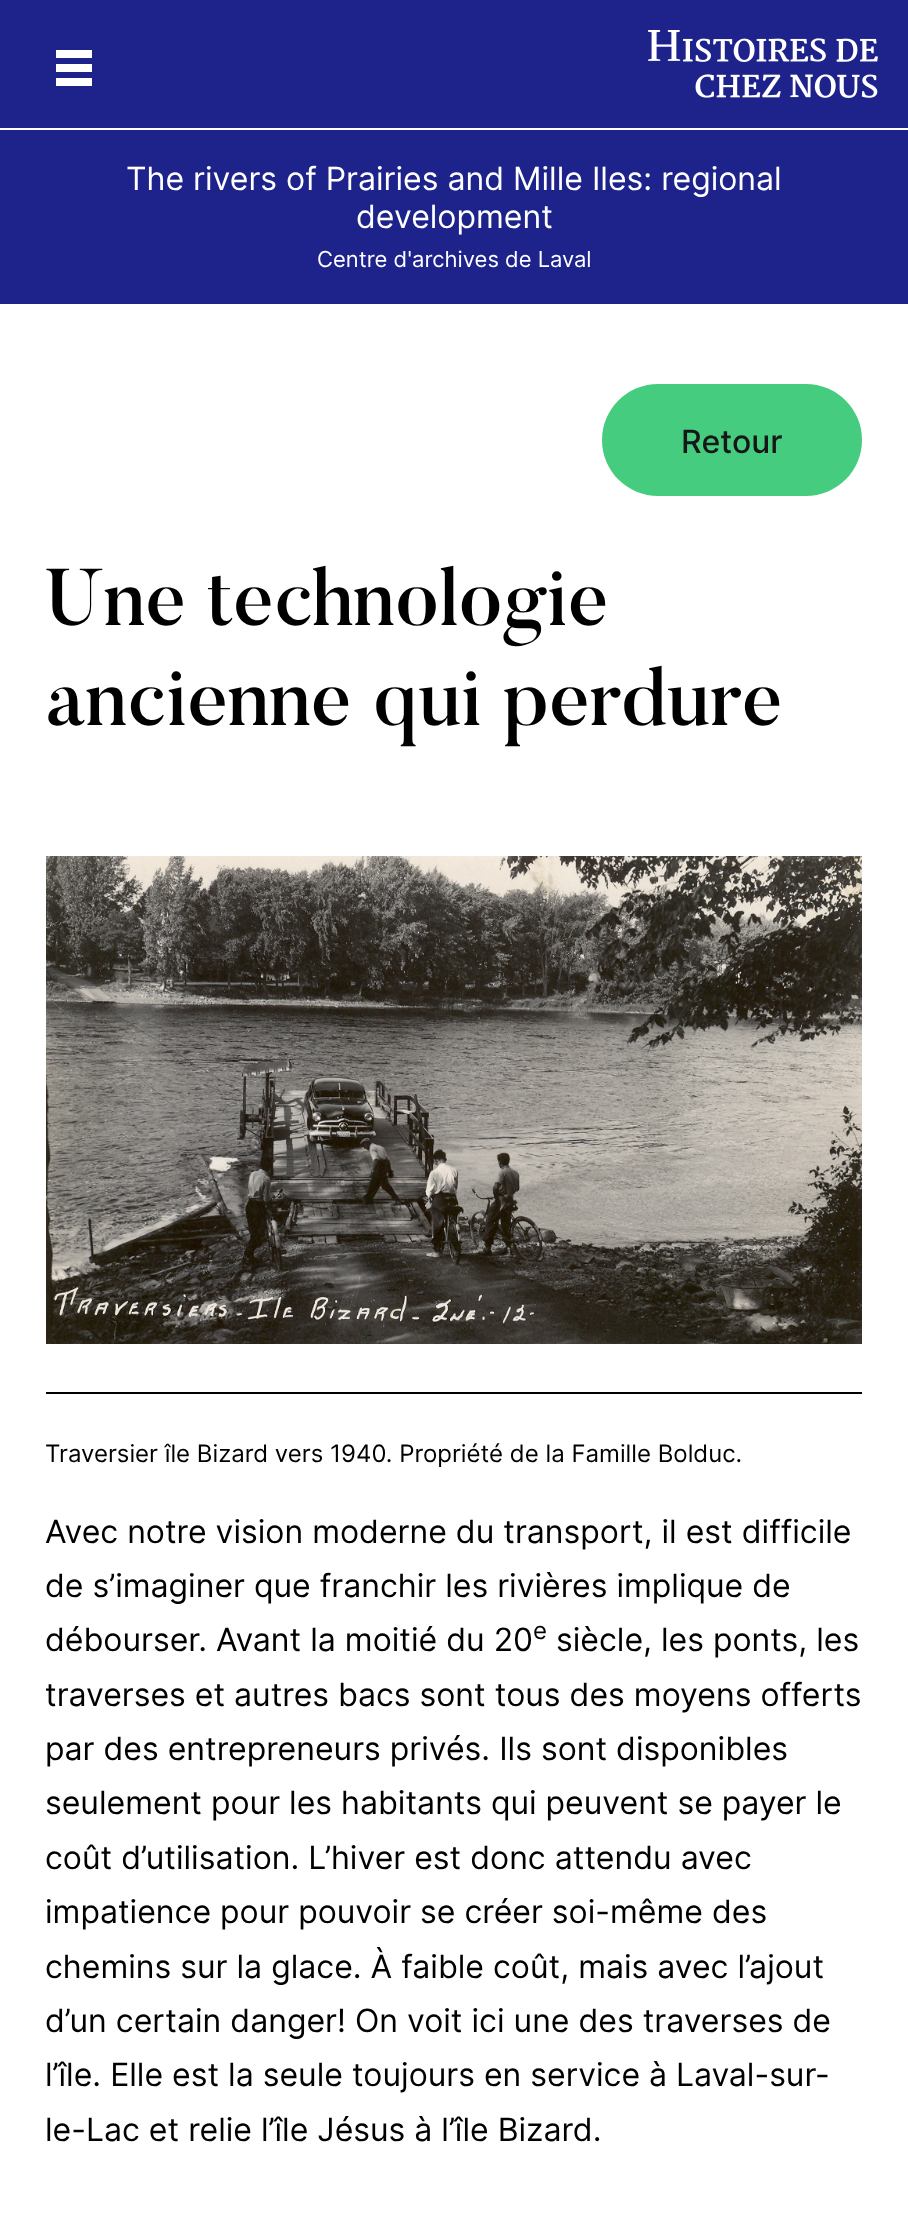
<?xml version="1.0" encoding="UTF-8"?>
<svg xmlns="http://www.w3.org/2000/svg" xmlns:xlink="http://www.w3.org/1999/xlink" width="908" height="2238">
  <rect width="100%" height="100%" fill="#ffffff" />
  <rect width="908" height="304" fill="#1e238b" />
  <rect x="56" y="64" width="36" height="8" fill="#ffffff" />
  <rect x="56" y="50" width="36" height="8" fill="#ffffff" />
  <rect x="56" y="78" width="36" height="8" fill="#ffffff" />
  <image x="648" y="30" width="230" height="68" xlink:href="image1.png" />
  <rect y="128" width="908" height="2" fill="#ffffff" />
  <rect x="602" y="384" width="260" height="112" rx="56" fill="#46cc7e" />
  <image x="46" y="856" width="816" height="488" xlink:href="image2.png" />
  <rect x="46" y="1392" width="816" height="2" fill="#000000" />
  <text x="126" y="190" style="font-family: Inter; font-size: 32px; fill: #ffffff">The rivers of Prairies and Mille Iles: regional</text>
  <text x="356" y="228" style="font-family: Inter; font-size: 32px; fill: #ffffff">development</text>
  <text x="317" y="267" style="font-family: Inter; font-size: 22px; fill: #ffffff">Centre d'archives de Laval</text>
  <text x="681" y="453" style="font-family: Inter; font-size: 32px; font-weight: 500; fill: #171717">Retour</text>
  <text x="45" y="625" style="font-family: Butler; font-size: 80px; font-weight: 500; fill: #000000">Une technologie</text>
  <text x="45" y="725" style="font-family: Butler; font-size: 80px; font-weight: 500; fill: #000000">ancienne qui perdure</text>
  <text x="45" y="1462" style="font-family: Inter; font-size: 24px; fill: #000000">Traversier île Bizard vers 1940. Propriété de la Famille Bolduc.</text>
  <text x="45" y="1543" style="font-family: Inter; font-size: 32px; fill: #000000">Avec notre vision moderne du transport, il est difficile</text>
  <text x="45" y="1597" style="font-family: Inter; font-size: 32px; fill: #000000">de s’imaginer que franchir les rivières implique de</text>
  <text x="45" y="1651" style="font-family: Inter; font-size: 32px; fill: #000000">débourser. Avant la moitié du 20</text>
  <text x="533" y="1639" style="font-family: Inter; font-size: 24px; fill: #000000">e</text>
  <text x="556" y="1651" style="font-family: Inter; font-size: 32px; fill: #000000">siècle, les ponts, les</text>
  <text x="45" y="1706" style="font-family: Inter; font-size: 32px; fill: #000000">traverses et autres bacs sont tous des moyens offerts</text>
  <text x="45" y="1760" style="font-family: Inter; font-size: 32px; fill: #000000">par des entrepreneurs privés. Ils sont disponibles</text>
  <text x="45" y="1814" style="font-family: Inter; font-size: 32px; fill: #000000">seulement pour les habitants qui peuvent se payer le</text>
  <text x="45" y="1869" style="font-family: Inter; font-size: 32px; fill: #000000">coût d’utilisation. L’hiver est donc attendu avec</text>
  <text x="45" y="1923" style="font-family: Inter; font-size: 32px; fill: #000000">impatience pour pouvoir se créer soi-même des</text>
  <text x="45" y="1978" style="font-family: Inter; font-size: 32px; fill: #000000">chemins sur la glace. À faible coût, mais avec l’ajout</text>
  <text x="45" y="2032" style="font-family: Inter; font-size: 32px; fill: #000000">d’un certain danger! On voit ici une des traverses de</text>
  <text x="45" y="2086" style="font-family: Inter; font-size: 32px; fill: #000000">l’île. Elle est la seule toujours en service à Laval-sur-</text>
  <text x="45" y="2141" style="font-family: Inter; font-size: 32px; fill: #000000">le-Lac et relie l’île Jésus à l’île Bizard.</text>
</svg>
